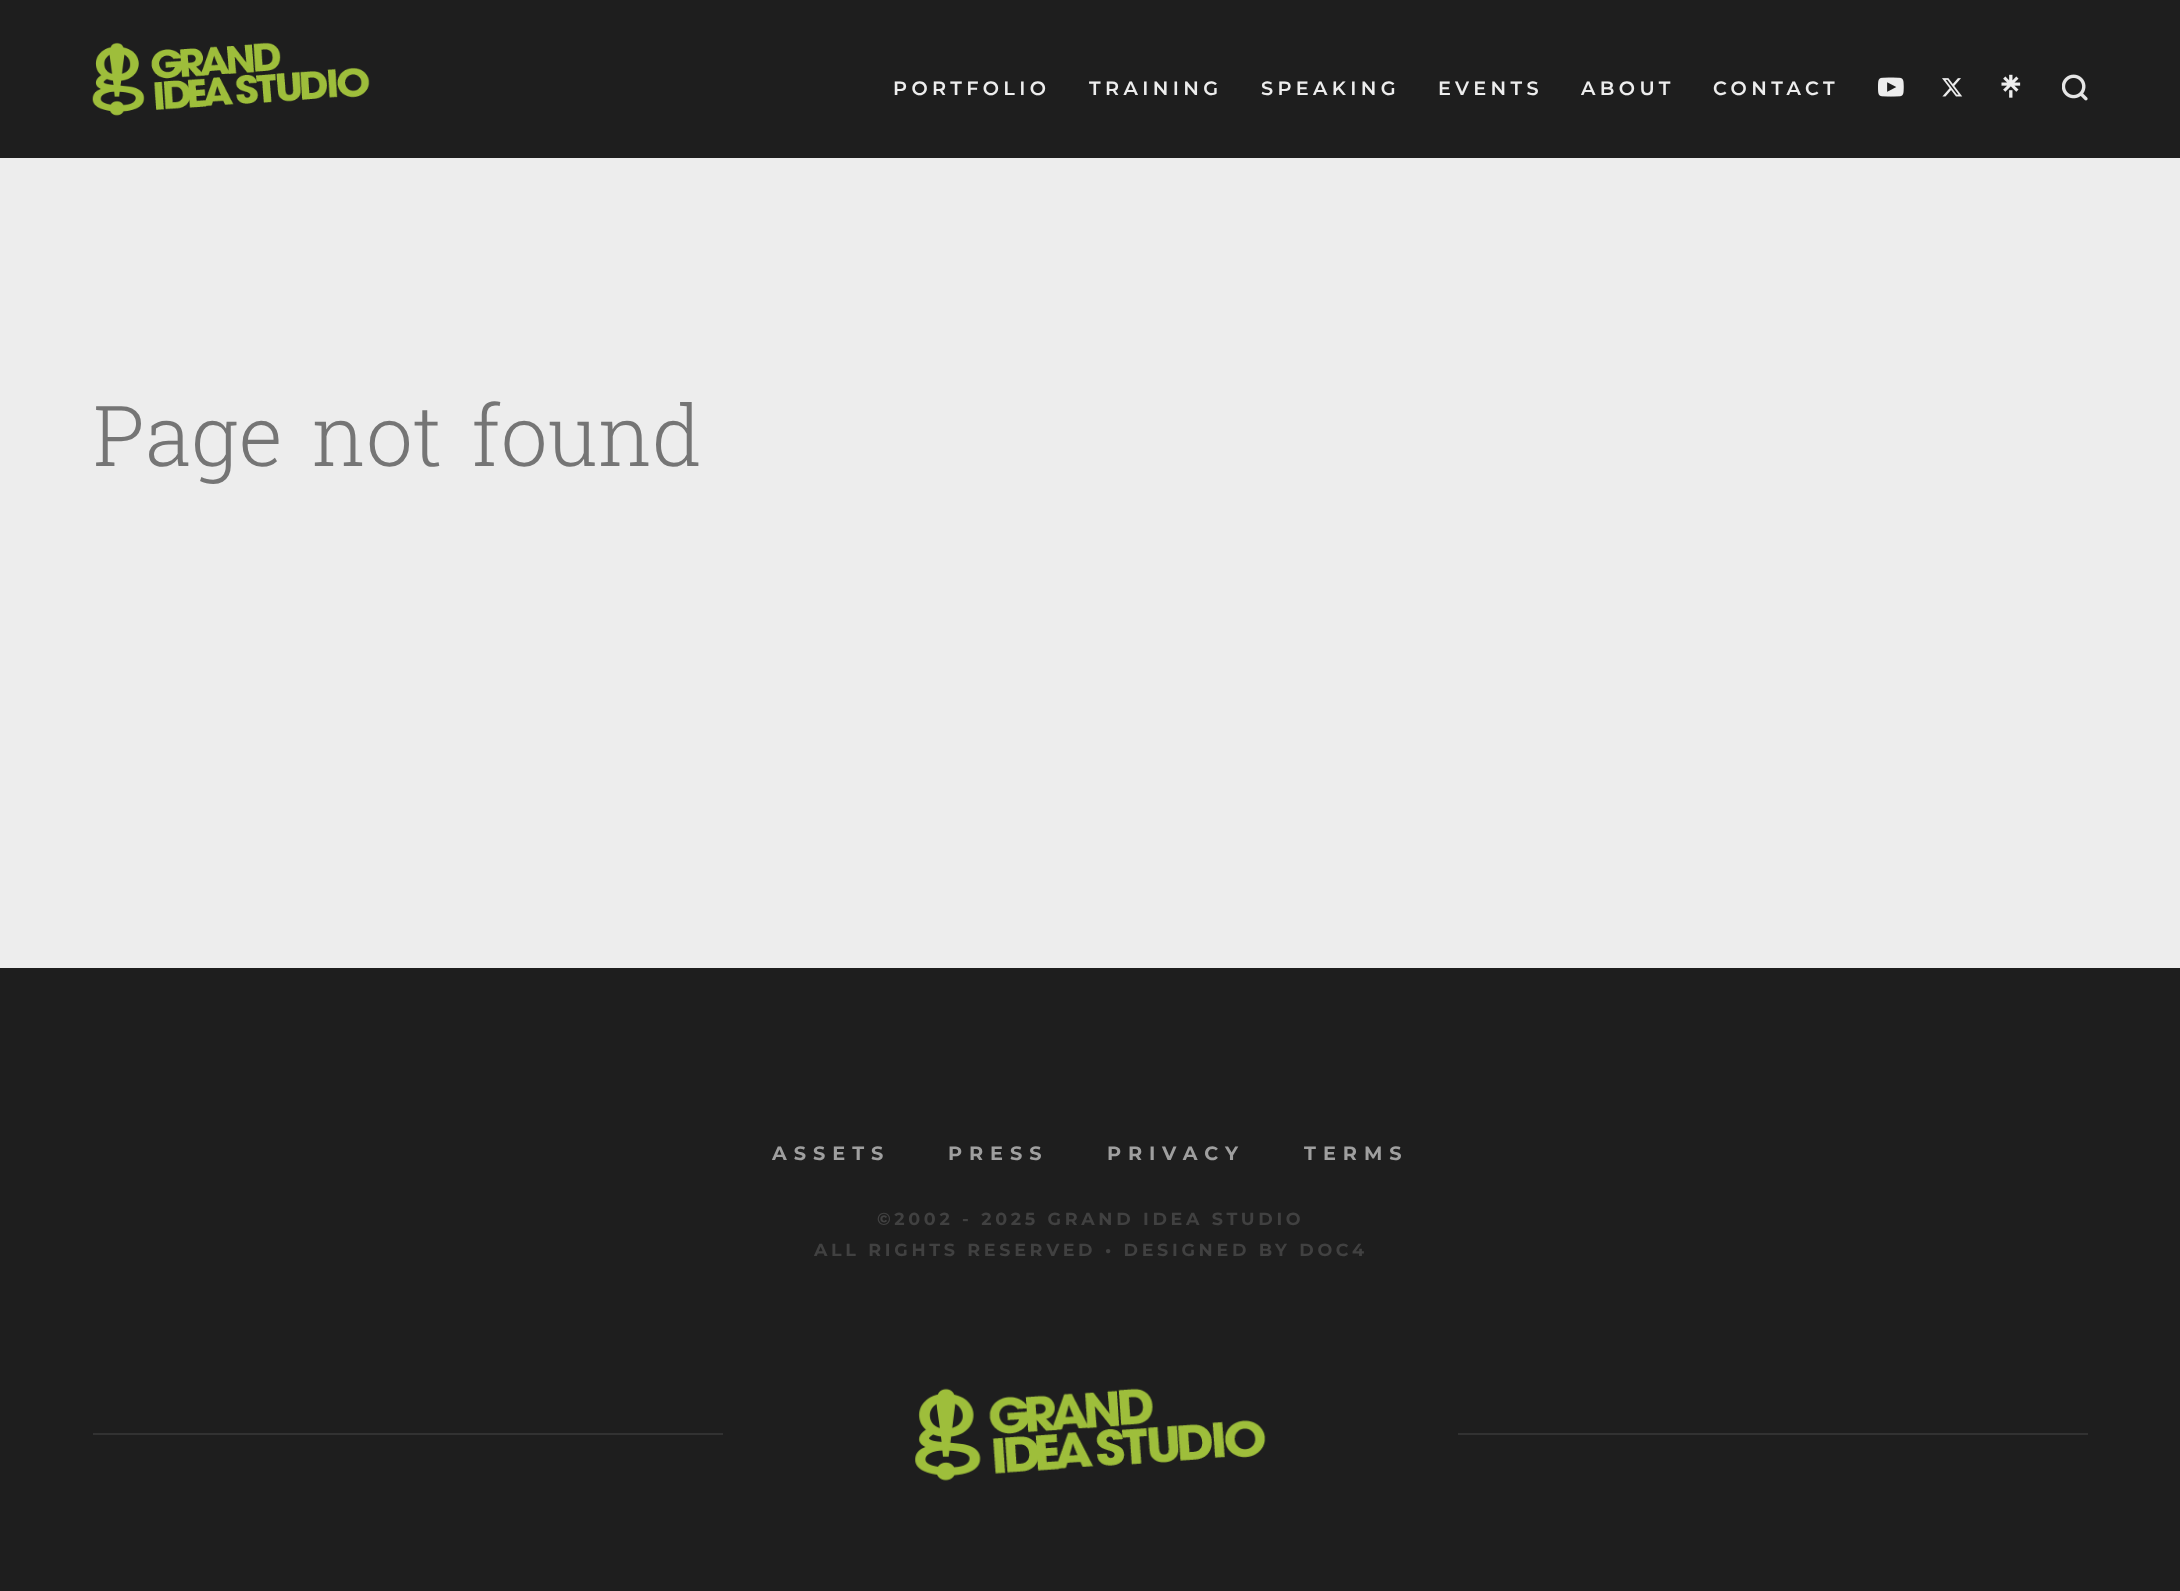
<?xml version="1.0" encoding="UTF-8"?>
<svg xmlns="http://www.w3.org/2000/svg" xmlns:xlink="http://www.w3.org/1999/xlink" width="2180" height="1591">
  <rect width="100%" height="100%" fill="#ededed" />
  <rect width="2180" height="158" fill="#1e1e1e" />
  <image x="92" y="42" width="278" height="74" xlink:href="image1.png" />
  <image x="1878" y="77" width="26" height="20" xlink:href="image2.png" />
  <image x="1942" y="78" width="21" height="19" xlink:href="image3.png" />
  <image x="2001" y="74" width="20" height="24" xlink:href="image4.png" />
  <image x="2062" y="74" width="26" height="27" xlink:href="image5.png" />
  <rect y="968" width="2180" height="623" fill="#1e1e1e" />
  <rect x="93" y="1433" width="630" height="2" fill="#323232" />
  <image x="915" y="1388" width="351" height="93" xlink:href="image6.png" />
  <rect x="1458" y="1433" width="630" height="2" fill="#323232" />
  <text x="893" y="95" style="font-family: Montserrat; font-size: 19.25px; font-weight: 600; letter-spacing: 4.4px; fill: #ededed">PORTFOLIO</text>
  <text x="1089" y="95" style="font-family: Montserrat; font-size: 19.25px; font-weight: 600; letter-spacing: 4.4px; fill: #ededed">TRAINING</text>
  <text x="1261" y="95" style="font-family: Montserrat; font-size: 19.25px; font-weight: 600; letter-spacing: 4.4px; fill: #ededed">SPEAKING</text>
  <text x="1438" y="95" style="font-family: Montserrat; font-size: 19.25px; font-weight: 600; letter-spacing: 4.4px; fill: #ededed">EVENTS</text>
  <text x="1581" y="95" style="font-family: Montserrat; font-size: 19.25px; font-weight: 600; letter-spacing: 4.4px; fill: #ededed">ABOUT</text>
  <text x="1713" y="95" style="font-family: Montserrat; font-size: 19.25px; font-weight: 600; letter-spacing: 4.4px; fill: #ededed">CONTACT</text>
  <text x="93" y="466" style="font-family: Suwannaphum; font-size: 84px; font-weight: 300; fill: #757575">Page not found</text>
  <text x="772" y="1160" style="font-family: Montserrat; font-size: 19.25px; font-weight: bold; letter-spacing: 7px; fill: #9f9f9f">ASSETS</text>
  <text x="948" y="1160" style="font-family: Montserrat; font-size: 19.25px; font-weight: bold; letter-spacing: 7px; fill: #9f9f9f">PRESS</text>
  <text x="1107" y="1160" style="font-family: Montserrat; font-size: 19.25px; font-weight: bold; letter-spacing: 7px; fill: #9f9f9f">PRIVACY</text>
  <text x="1304" y="1160" style="font-family: Montserrat; font-size: 19.25px; font-weight: bold; letter-spacing: 7px; fill: #9f9f9f">TERMS</text>
  <text x="877" y="1225" style="font-family: Montserrat; font-size: 17.5px; font-weight: bold; letter-spacing: 3.7px; fill: #414141">©2002 - 2025 GRAND IDEA STUDIO</text>
  <text x="814" y="1256" style="font-family: Montserrat; font-size: 17.5px; font-weight: bold; letter-spacing: 3.7px; fill: #414141">ALL RIGHTS RESERVED • DESIGNED BY DOC4</text>
</svg>
